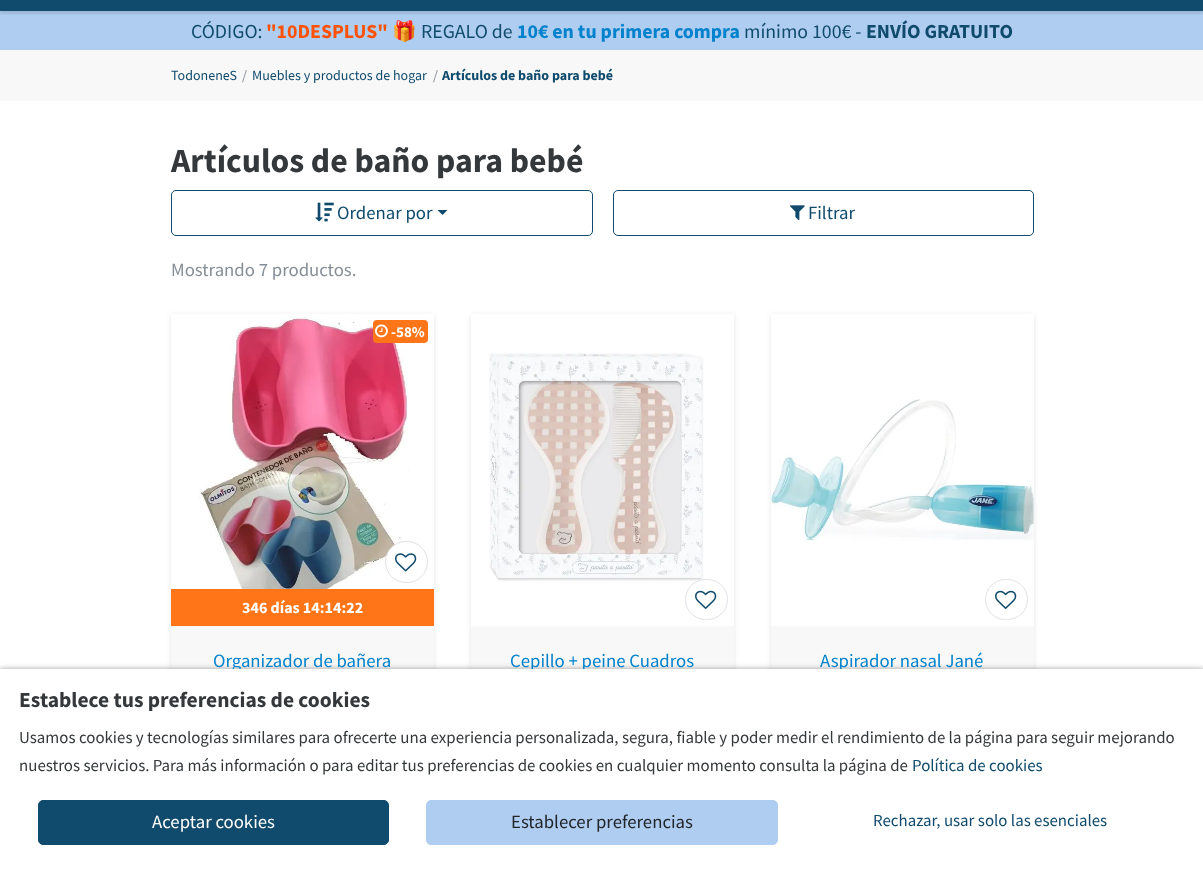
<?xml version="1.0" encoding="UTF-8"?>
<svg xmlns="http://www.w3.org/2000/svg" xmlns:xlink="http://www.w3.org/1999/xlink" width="1203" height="883">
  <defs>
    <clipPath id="clip1"><rect x="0" y="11" width="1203" height="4" /></clipPath>
  </defs>
  <rect width="100%" height="100%" fill="#ffffff" />
  <rect width="1203" height="11" fill="#104b6d" />
  <rect y="11" width="1203" height="39" fill="#afcdf0" />
  <g clip-path="url(#clip1)">
    <rect y="-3" width="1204" height="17" fill="#000000" fill-opacity="0.1" filter="blur(1px)" />
  </g>
  <rect y="50" width="1203" height="51" fill="#f8f8f8" />
  <rect x="171.5" y="190.5" width="421" height="45" rx="4.5" fill="none" stroke="#104b6d" />
  <image x="315" y="202" width="19" height="20" xlink:href="image1.png" />
  <path d="M 437.5 210 h 10 l -5 5 z" fill="#104b6d" />
  <rect x="613.5" y="190.5" width="420" height="45" rx="4.5" fill="none" stroke="#104b6d" />
  <image x="790" y="205" width="15" height="16" xlink:href="image2.png" />
  <rect x="171" y="315" width="263" height="531" fill="#000000" fill-opacity="0.1" filter="blur(2.5px)" />
  <rect x="171" y="314" width="263" height="275" fill="#ffffff" />
  <image x="198" y="317" width="211" height="272" xlink:href="image3.png" />
  <rect x="385.5" y="541.5" width="42" height="41" rx="20.5" fill="#ffffff" stroke="#dfe2e6" />
  <image x="395" y="553" width="22" height="19" xlink:href="image4.png" />
  <rect x="373" y="320" width="55" height="23" rx="4" fill="#ff7518" />
  <image x="375" y="324" width="13" height="14" xlink:href="image5.png" />
  <rect x="171" y="589" width="263" height="37" fill="#ff7518" />
  <rect x="171" y="626" width="263" height="43" fill="#f8f8f8" />
  <rect x="471" y="315" width="263" height="531" fill="#000000" fill-opacity="0.1" filter="blur(2.5px)" />
  <rect x="471" y="314" width="263" height="312" fill="#ffffff" />
  <image x="489" y="352" width="215" height="230" xlink:href="image6.png" />
  <rect x="685.5" y="579.5" width="42" height="40" rx="20" fill="#ffffff" stroke="#dfe2e6" />
  <image x="695" y="590" width="22" height="19" xlink:href="image7.png" />
  <rect x="471" y="626" width="263" height="43" fill="#f8f8f8" />
  <rect x="771" y="315" width="263" height="531" fill="#000000" fill-opacity="0.1" filter="blur(2.5px)" />
  <rect x="771" y="314" width="263" height="312" fill="#ffffff" />
  <image x="771" y="399" width="263" height="142" xlink:href="image8.png" />
  <rect x="985.5" y="579.5" width="42" height="40" rx="20" fill="none" stroke="#dfe2e6" />
  <image x="995" y="590" width="22" height="19" xlink:href="image7.png" />
  <rect x="771" y="626" width="263" height="43" fill="#f8f8f8" />
  <rect y="670" width="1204" height="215" fill="#000000" fill-opacity="0.5" filter="blur(3px)" />
  <text x="191" y="38" style="font-family: Source Sans Pro; font-size: 19.8px; fill: #104b6d">CÓDIGO:</text>
  <text x="266" y="38" style="font-family: Source Sans Pro; font-size: 19.8px; font-weight: bold; fill: #ff5100">"10DESPLUS"</text>
  <text x="392" y="38" style="font-family: Noto Color Emoji; font-size: 19.8px; fill: #104b6d">🎁</text>
  <text x="421" y="38" style="font-family: Source Sans Pro; font-size: 19.8px; fill: #104b6d">REGALO de</text>
  <text x="517" y="38" style="font-family: Source Sans Pro; font-size: 19.8px; font-weight: bold; fill: #0082cc">10€ en tu primera compra</text>
  <text x="744" y="38" style="font-family: Source Sans Pro; font-size: 19.8px; fill: #104b6d">mínimo 100€ -</text>
  <text x="866" y="38" style="font-family: Source Sans Pro; font-size: 19.8px; font-weight: bold; fill: #104b6d">ENVÍO GRATUITO</text>
  <text x="171" y="80" style="font-family: Source Sans Pro; font-size: 14px; fill: #104b6d">TodoneneS</text>
  <text x="242" y="80" style="font-family: Source Sans Pro; font-size: 14px; fill: #868e96">/</text>
  <text x="252" y="80" style="font-family: Source Sans Pro; font-size: 14px; fill: #104b6d">Muebles y productos de hogar</text>
  <text x="433" y="80" style="font-family: Source Sans Pro; font-size: 14px; fill: #868e96">/</text>
  <text x="442" y="80" style="font-family: Source Sans Pro; font-size: 14px; font-weight: bold; fill: #104b6d">Artículos de baño para bebé</text>
  <text x="171" y="172" style="font-family: Source Sans Pro; font-size: 33.75px; font-weight: bold; fill: #34383a">Artículos de baño para bebé</text>
  <text x="337" y="219" style="font-family: Source Sans Pro; font-size: 18.75px; fill: #104b6d">Ordenar por</text>
  <text x="808" y="219" style="font-family: Source Sans Pro; font-size: 18.75px; fill: #104b6d">Filtrar</text>
  <text x="171" y="276" style="font-family: Source Sans Pro; font-size: 18.75px; fill: #868e96">Mostrando 7 productos.</text>
  <text x="391" y="337" style="font-family: Source Sans Pro; font-size: 15px; font-weight: bold; fill: #ffffff">-58%</text>
  <text x="242" y="613" style="font-family: Source Sans Pro; font-size: 16px; font-weight: bold; fill: #ffffff">346 días 14:14:22</text>
  <text x="213" y="667" style="font-family: Source Sans Pro; font-size: 18.75px; fill: #0082cc">Organizador de bañera</text>
  <text x="510" y="667" style="font-family: Source Sans Pro; font-size: 18.75px; fill: #0082cc">Cepillo + peine Cuadros</text>
  <text x="820" y="667" style="font-family: Source Sans Pro; font-size: 18.75px; fill: #0082cc">Aspirador nasal Jané</text>
  <rect y="669" width="1203" height="214" fill="#ffffff" />
  <text x="19" y="707" style="font-family: Source Sans Pro; font-size: 21.5px; font-weight: bold; fill: #34383a">Establece tus preferencias de cookies</text>
  <text x="19" y="743" style="font-family: Source Sans Pro; font-size: 16.88px; fill: #34383a">Usamos cookies y tecnologías similares para ofrecerte una experiencia personalizada, segura, fiable y poder medir el rendimiento de la página para seguir mejorando</text>
  <text x="19" y="771" style="font-family: Source Sans Pro; font-size: 16.88px; fill: #34383a">nuestros servicios. Para más información o para editar tus preferencias de cookies en cualquier momento consulta la página de</text>
  <text x="912" y="771" style="font-family: Source Sans Pro; font-size: 16.88px; fill: #104b6d">Política de cookies</text>
  <rect x="38.5" y="800.5" width="350" height="44" rx="4.5" fill="#104b6d" stroke="#104b6d" />
  <text x="152" y="828" style="font-family: Source Sans Pro; font-size: 18.75px; fill: #ffffff">Aceptar cookies</text>
  <rect x="426.5" y="800.5" width="351" height="44" rx="4.5" fill="#afcdf0" stroke="#afcdf0" />
  <text x="511" y="828" style="font-family: Source Sans Pro; font-size: 18.75px; fill: #212529">Establecer preferencias</text>
  <text x="873" y="826" style="font-family: Source Sans Pro; font-size: 16.88px; fill: #104b6d">Rechazar, usar solo las esenciales</text>
</svg>
